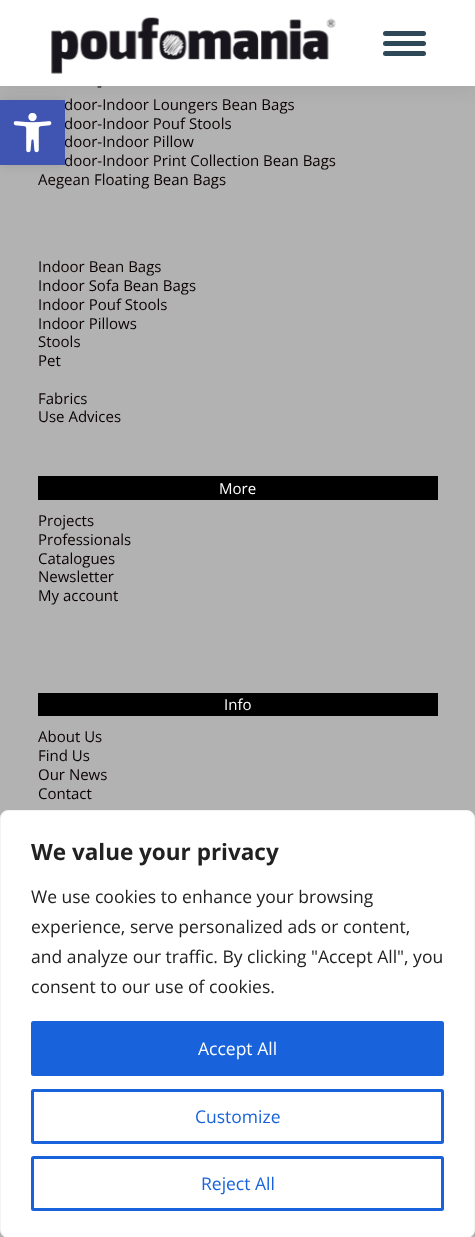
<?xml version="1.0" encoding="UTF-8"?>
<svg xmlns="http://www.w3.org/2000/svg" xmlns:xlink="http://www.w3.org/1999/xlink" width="475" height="1237">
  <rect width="100%" height="100%" fill="#b2b2b2" />
  <rect x="-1" y="-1" width="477" height="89" fill="#000000" fill-opacity="0.07" filter="blur(9.5px)" />
  <rect width="475" height="86" fill="#ffffff" />
  <rect y="100" width="65" height="65" fill="#000000" fill-opacity="0.1" filter="blur(6px)" />
  <image x="51" y="17" width="285" height="57" xlink:href="image2.png" />
  <rect x="383" y="31" width="43" height="5" rx="2.5" fill="#2f4858" />
  <rect x="383" y="41" width="43" height="5" rx="2.5" fill="#2f4858" />
  <rect x="383" y="51" width="43" height="5" rx="2.5" fill="#2f4858" />
  <rect x="38" y="476" width="400" height="24" fill="#000000" />
  <rect x="38" y="693" width="400" height="23" fill="#000000" />
  <rect x="0.5" y="810.5" width="474" height="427" rx="7.5" fill="#ffffff" stroke="#f4f4f4" />
  <rect x="32.5" y="1022.5" width="410" height="52" rx="1" fill="#1863dc" stroke="#1863dc" stroke-width="3" />
  <rect x="32.5" y="1090.5" width="410" height="52" rx="1" fill="none" stroke="#1863dc" stroke-width="3" />
  <rect x="32.5" y="1157.5" width="410" height="52" rx="1" fill="none" stroke="#1863dc" stroke-width="3" />
  <text x="97" y="91" style="font-family: Open Sans; font-size: 15px; fill: #0a0002">-</text>
  <text x="64" y="110" style="font-family: Open Sans; font-size: 15px; fill: #0a0002">door-Indoor Loungers Bean Bags</text>
  <text x="64" y="129" style="font-family: Open Sans; font-size: 15px; fill: #0a0002">door-Indoor Pouf Stools</text>
  <text x="64" y="147" style="font-family: Open Sans; font-size: 15px; fill: #0a0002">door-Indoor Pillow</text>
  <text x="64" y="166" style="font-family: Open Sans; font-size: 15px; fill: #0a0002">door-Indoor Print Collection Bean Bags</text>
  <rect y="100" width="65" height="65" fill="#4054b2" />
  <image x="13" y="113" width="39" height="40" xlink:href="image1.png" />
  <text x="38" y="185" style="font-family: Open Sans; font-size: 15px; fill: #0a0002">Aegean Floating Bean Bags</text>
  <text x="38" y="272" style="font-family: Open Sans; font-size: 15px; fill: #0a0002">Indoor Bean Bags</text>
  <text x="38" y="291" style="font-family: Open Sans; font-size: 15px; fill: #0a0002">Indoor Sofa Bean Bags</text>
  <text x="38" y="310" style="font-family: Open Sans; font-size: 15px; fill: #0a0002">Indoor Pouf Stools</text>
  <text x="38" y="329" style="font-family: Open Sans; font-size: 15px; fill: #0a0002">Indoor Pillows</text>
  <text x="38" y="347" style="font-family: Open Sans; font-size: 15px; fill: #0a0002">Stools</text>
  <text x="38" y="366" style="font-family: Open Sans; font-size: 15px; fill: #0a0002">Pet</text>
  <text x="38" y="404" style="font-family: Open Sans; font-size: 15px; fill: #0a0002">Fabrics</text>
  <text x="38" y="422" style="font-family: Open Sans; font-size: 15px; fill: #0a0002">Use Advices</text>
  <text x="219" y="494" style="font-family: Open Sans; font-size: 15px; fill: #ffffff">More</text>
  <text x="38" y="526" style="font-family: Open Sans; font-size: 15px; fill: #0a0002">Projects</text>
  <text x="38" y="545" style="font-family: Open Sans; font-size: 15px; fill: #0a0002">Professionals</text>
  <text x="38" y="564" style="font-family: Open Sans; font-size: 15px; fill: #0a0002">Catalogues</text>
  <text x="38" y="582" style="font-family: Open Sans; font-size: 15px; fill: #0a0002">Newsletter</text>
  <text x="38" y="601" style="font-family: Open Sans; font-size: 15px; fill: #0a0002">My account</text>
  <text x="224" y="710" style="font-family: Open Sans; font-size: 15px; fill: #ffffff">Info</text>
  <text x="38" y="742" style="font-family: Open Sans; font-size: 15px; fill: #0a0002">About Us</text>
  <text x="38" y="761" style="font-family: Open Sans; font-size: 15px; fill: #0a0002">Find Us</text>
  <text x="38" y="780" style="font-family: Open Sans; font-size: 15px; fill: #0a0002">Our News</text>
  <text x="38" y="799" style="font-family: Open Sans; font-size: 15px; fill: #0a0002">Contact</text>
  <text x="31" y="860" style="font-family: Open Sans; font-size: 22.5px; font-weight: bold; fill: #212121">We value your privacy</text>
  <text x="31" y="903" style="font-family: Open Sans; font-size: 17.5px; fill: #212121">We use cookies to enhance your browsing</text>
  <text x="31" y="933" style="font-family: Open Sans; font-size: 17.5px; fill: #212121">experience, serve personalized ads or content,</text>
  <text x="31" y="963" style="font-family: Open Sans; font-size: 17.5px; fill: #212121">and analyze our traffic. By clicking "Accept All", you</text>
  <text x="31" y="993" style="font-family: Open Sans; font-size: 17.5px; fill: #212121">consent to our use of cookies.</text>
  <text x="198" y="1055" style="font-family: Open Sans; font-size: 17.5px; fill: #ffffff">Accept All</text>
  <text x="195" y="1123" style="font-family: Open Sans; font-size: 17.5px; fill: #1863dc">Customize</text>
  <text x="201" y="1190" style="font-family: Open Sans; font-size: 17.5px; fill: #1863dc">Reject All</text>
</svg>
